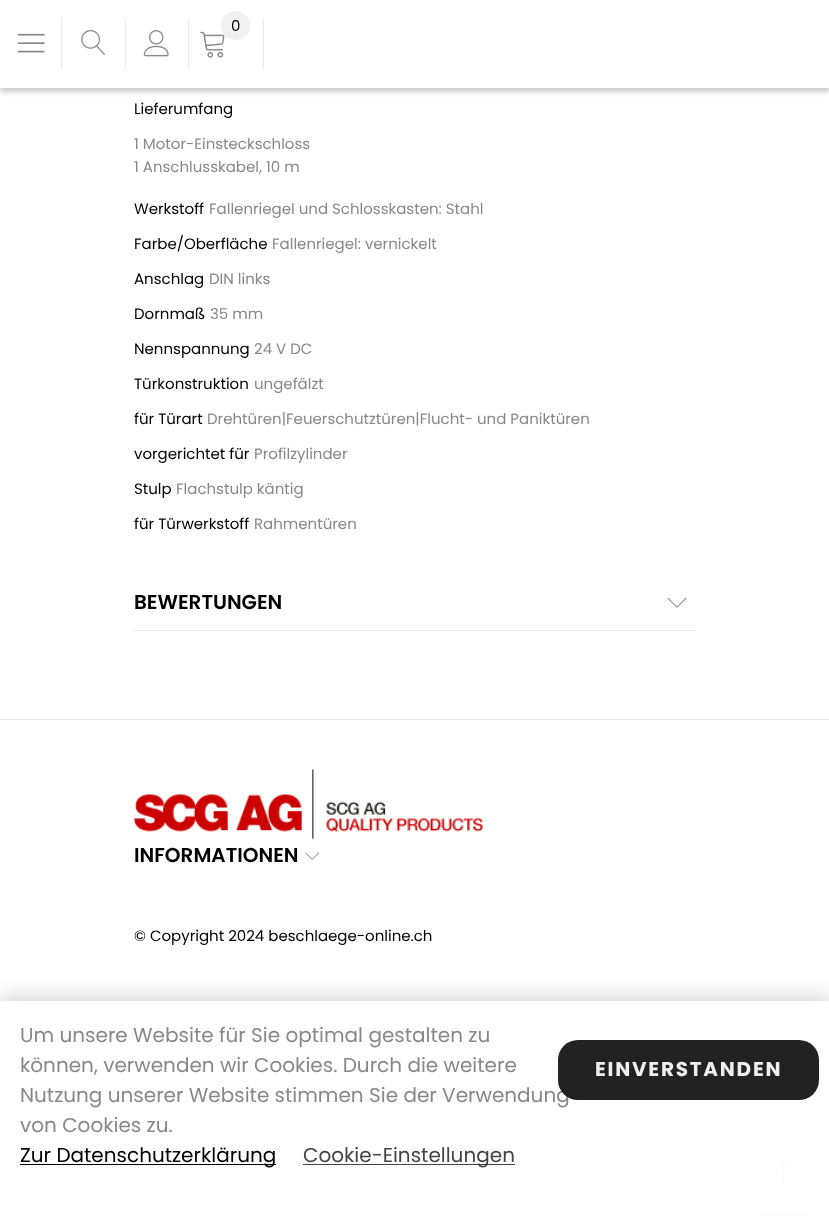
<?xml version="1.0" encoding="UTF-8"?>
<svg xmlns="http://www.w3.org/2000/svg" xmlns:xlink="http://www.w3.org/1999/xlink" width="829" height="1216">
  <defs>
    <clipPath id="clip1"><path d="M 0 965 h 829 v 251 h -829 z m 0 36 h 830 v 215 h -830 z" clip-rule="evenodd" /></clipPath>
  </defs>
  <rect width="100%" height="100%" fill="#ffffff" />
  <rect y="4" width="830" height="87" fill="#000000" fill-opacity="0.25" filter="blur(3px)" />
  <rect width="829" height="88" fill="#ffffff" />
  <rect x="61" y="18" width="1" height="50" fill="#eae9e9" />
  <image x="17" y="33" width="28" height="20" xlink:href="image1.png" />
  <image x="81" y="30" width="24" height="25" xlink:href="image2.png" />
  <rect x="125" y="19" width="1" height="50" fill="#eae9e9" />
  <image x="143" y="30" width="26" height="27" xlink:href="image3.png" />
  <rect x="263" y="19" width="1" height="50" fill="#eae9e9" />
  <rect x="188" y="19" width="1" height="50" fill="#eae9e9" />
  <image x="200" y="31" width="25" height="27" xlink:href="image4.png" />
  <circle cx="235.5" cy="25.5" r="14.5" fill="#f0f0f0" />
  <rect x="134" y="630" width="562" height="1" fill="#eae9e9" />
  <image x="667" y="597" width="20" height="11" xlink:href="image5.png" />
  <rect y="719" width="829" height="1" fill="#eae9e9" />
  <image x="133" y="769" width="350" height="71" xlink:href="image6.png" />
  <image x="305" y="852" width="15" height="8" xlink:href="image7.png" />
  <rect x="763" y="1155" width="42" height="43" rx="21" fill="#000000" fill-opacity="0.09" filter="blur(17px)" />
  <circle cx="784" cy="1170" r="21" fill="#ffffff" />
  <image x="776" y="1161" width="15" height="22" xlink:href="image8.png" />
  <g clip-path="url(#clip1)">
    <rect y="999" width="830" height="215" fill="#000000" fill-opacity="0.2" filter="blur(11px)" />
  </g>
  <rect y="1001" width="829" height="211" fill="#ffffff" fill-opacity="0.95" />
  <rect x="20" y="1164" width="256" height="1" fill="#000000" />
  <rect x="303" y="1164" width="212" height="1" fill="#444444" />
  <text x="231" y="31" style="font-family: Poppins; font-size: 15px; fill: #000000">0</text>
  <text x="134" y="114" style="font-family: Poppins; font-size: 15px; fill: #000000">Lieferumfang</text>
  <text x="134" y="149" style="font-family: Poppins; font-size: 15px; fill: #888888">1 Motor-Einsteckschloss</text>
  <text x="134" y="172" style="font-family: Poppins; font-size: 15px; fill: #888888">1 Anschlusskabel, 10 m</text>
  <text x="134" y="214" style="font-family: Poppins; font-size: 15px; fill: #000000">Werkstoff</text>
  <text x="209" y="214" style="font-family: Poppins; font-size: 15px; fill: #888888">Fallenriegel und Schlosskasten: Stahl</text>
  <text x="134" y="249" style="font-family: Poppins; font-size: 15px; fill: #000000">Farbe/Oberfläche</text>
  <text x="272" y="249" style="font-family: Poppins; font-size: 15px; fill: #888888">Fallenriegel: vernickelt</text>
  <text x="134" y="284" style="font-family: Poppins; font-size: 15px; fill: #000000">Anschlag</text>
  <text x="209" y="284" style="font-family: Poppins; font-size: 15px; fill: #888888">DIN links</text>
  <text x="134" y="319" style="font-family: Poppins; font-size: 15px; fill: #000000">Dornmaß</text>
  <text x="210" y="319" style="font-family: Poppins; font-size: 15px; fill: #888888">35 mm</text>
  <text x="134" y="354" style="font-family: Poppins; font-size: 15px; fill: #000000">Nennspannung</text>
  <text x="254" y="354" style="font-family: Poppins; font-size: 15px; fill: #888888">24 V DC</text>
  <text x="134" y="389" style="font-family: Poppins; font-size: 15px; fill: #000000">Türkonstruktion</text>
  <text x="254" y="389" style="font-family: Poppins; font-size: 15px; fill: #888888">ungefälzt</text>
  <text x="134" y="424" style="font-family: Poppins; font-size: 15px; fill: #000000">für Türart</text>
  <text x="207" y="424" style="font-family: Poppins; font-size: 15px; fill: #888888">Drehtüren|Feuerschutztüren|Flucht- und Paniktüren</text>
  <text x="134" y="459" style="font-family: Poppins; font-size: 15px; fill: #000000">vorgerichtet für</text>
  <text x="254" y="459" style="font-family: Poppins; font-size: 15px; fill: #888888">Profilzylinder</text>
  <text x="134" y="494" style="font-family: Poppins; font-size: 15px; fill: #000000">Stulp</text>
  <text x="176" y="494" style="font-family: Poppins; font-size: 15px; fill: #888888">Flachstulp käntig</text>
  <text x="134" y="529" style="font-family: Poppins; font-size: 15px; fill: #000000">für Türwerkstoff</text>
  <text x="254" y="529" style="font-family: Poppins; font-size: 15px; fill: #888888">Rahmentüren</text>
  <text x="134" y="609" style="font-family: Poppins; font-size: 20px; font-weight: 600; fill: #000000">BEWERTUNGEN</text>
  <text x="134" y="862" style="font-family: Poppins; font-size: 20px; font-weight: 600; fill: #000000">INFORMATIONEN</text>
  <text x="134" y="941" style="font-family: Poppins; font-size: 15px; fill: #000000">© Copyright 2024 beschlaege-online.ch</text>
  <text x="20" y="1042" style="font-family: Poppins; font-size: 20px; fill: #888888">Um unsere Website für Sie optimal gestalten zu</text>
  <text x="20" y="1072" style="font-family: Poppins; font-size: 20px; fill: #888888">können, verwenden wir Cookies. Durch die weitere</text>
  <text x="20" y="1102" style="font-family: Poppins; font-size: 20px; fill: #888888">Nutzung unserer Website stimmen Sie der Verwendung</text>
  <text x="20" y="1132" style="font-family: Poppins; font-size: 20px; fill: #888888">von Cookies zu.</text>
  <text x="20" y="1162" style="font-family: Poppins; font-size: 20px; fill: #000000">Zur Datenschutzerklärung</text>
  <text x="303" y="1162" style="font-family: Poppins; font-size: 20px; fill: #444444">Cookie-Einstellungen</text>
  <rect x="558" y="1040" width="261" height="60" rx="20" fill="#222222" />
  <text x="595" y="1076" style="font-family: Poppins; font-size: 20px; font-weight: bold; letter-spacing: 1.75px; fill: #eeeeee">EINVERSTANDEN</text>
</svg>
